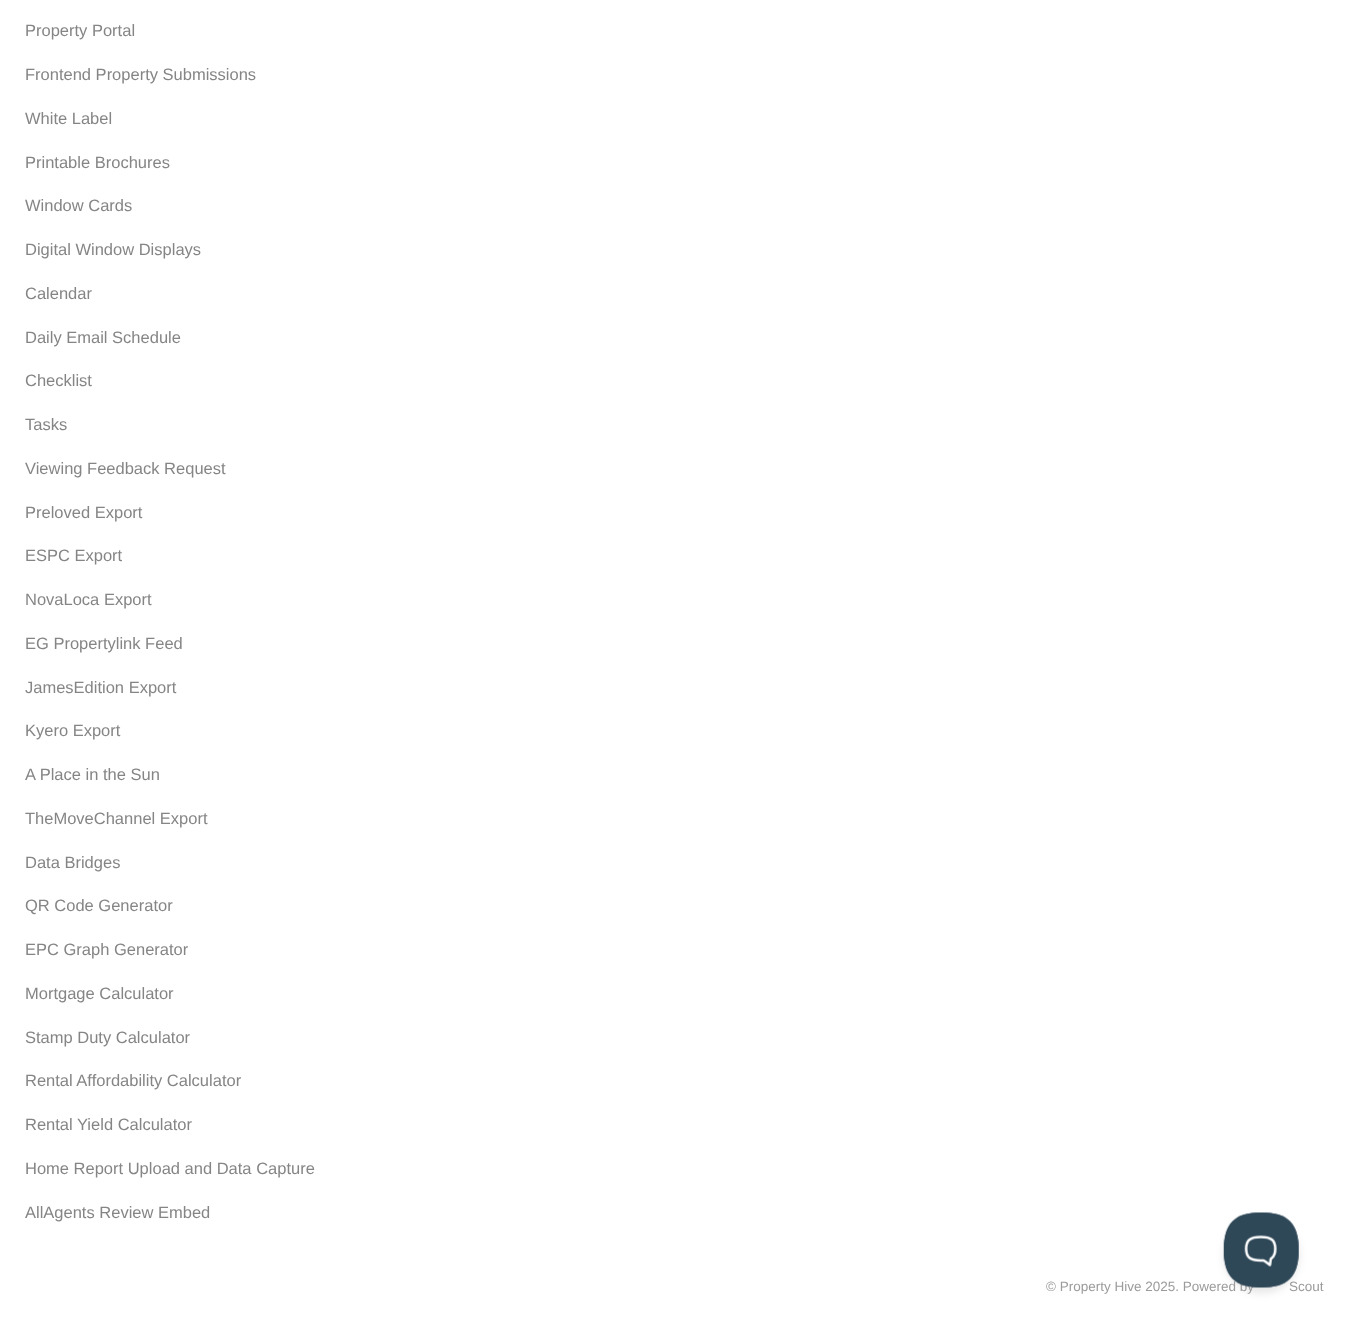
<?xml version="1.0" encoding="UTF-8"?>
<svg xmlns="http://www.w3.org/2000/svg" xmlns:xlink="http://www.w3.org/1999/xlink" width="1348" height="1337">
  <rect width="100%" height="100%" fill="#ffffff" />
  <rect x="1224" y="1218" width="75" height="75" rx="37.5" fill="#000000" fill-opacity="0.1" filter="blur(4.5px)" />
  <text x="25" y="36" style="font-family: Liberation Sans; font-size: 16.5px; fill: #858585">Property Portal</text>
  <text x="25" y="80" style="font-family: Liberation Sans; font-size: 16.5px; fill: #858585">Frontend Property Submissions</text>
  <text x="25" y="124" style="font-family: Liberation Sans; font-size: 16.5px; fill: #858585">White Label</text>
  <text x="25" y="168" style="font-family: Liberation Sans; font-size: 16.5px; fill: #858585">Printable Brochures</text>
  <text x="25" y="211" style="font-family: Liberation Sans; font-size: 16.5px; fill: #858585">Window Cards</text>
  <text x="25" y="255" style="font-family: Liberation Sans; font-size: 16.5px; fill: #858585">Digital Window Displays</text>
  <text x="25" y="299" style="font-family: Liberation Sans; font-size: 16.5px; fill: #858585">Calendar</text>
  <text x="25" y="343" style="font-family: Liberation Sans; font-size: 16.5px; fill: #858585">Daily Email Schedule</text>
  <text x="25" y="386" style="font-family: Liberation Sans; font-size: 16.5px; fill: #858585">Checklist</text>
  <text x="25" y="430" style="font-family: Liberation Sans; font-size: 16.5px; fill: #858585">Tasks</text>
  <text x="25" y="474" style="font-family: Liberation Sans; font-size: 16.5px; fill: #858585">Viewing Feedback Request</text>
  <text x="25" y="518" style="font-family: Liberation Sans; font-size: 16.5px; fill: #858585">Preloved Export</text>
  <text x="25" y="561" style="font-family: Liberation Sans; font-size: 16.5px; fill: #858585">ESPC Export</text>
  <text x="25" y="605" style="font-family: Liberation Sans; font-size: 16.5px; fill: #858585">NovaLoca Export</text>
  <text x="25" y="649" style="font-family: Liberation Sans; font-size: 16.5px; fill: #858585">EG Propertylink Feed</text>
  <text x="25" y="693" style="font-family: Liberation Sans; font-size: 16.5px; fill: #858585">JamesEdition Export</text>
  <text x="25" y="736" style="font-family: Liberation Sans; font-size: 16.5px; fill: #858585">Kyero Export</text>
  <text x="25" y="780" style="font-family: Liberation Sans; font-size: 16.5px; fill: #858585">A Place in the Sun</text>
  <text x="25" y="824" style="font-family: Liberation Sans; font-size: 16.5px; fill: #858585">TheMoveChannel Export</text>
  <text x="25" y="868" style="font-family: Liberation Sans; font-size: 16.5px; fill: #858585">Data Bridges</text>
  <text x="25" y="911" style="font-family: Liberation Sans; font-size: 16.5px; fill: #858585">QR Code Generator</text>
  <text x="25" y="955" style="font-family: Liberation Sans; font-size: 16.5px; fill: #858585">EPC Graph Generator</text>
  <text x="25" y="999" style="font-family: Liberation Sans; font-size: 16.5px; fill: #858585">Mortgage Calculator</text>
  <text x="25" y="1043" style="font-family: Liberation Sans; font-size: 16.5px; fill: #858585">Stamp Duty Calculator</text>
  <text x="25" y="1086" style="font-family: Liberation Sans; font-size: 16.5px; fill: #858585">Rental Affordability Calculator</text>
  <text x="25" y="1130" style="font-family: Liberation Sans; font-size: 16.5px; fill: #858585">Rental Yield Calculator</text>
  <text x="25" y="1174" style="font-family: Liberation Sans; font-size: 16.5px; fill: #858585">Home Report Upload and Data Capture</text>
  <text x="25" y="1218" style="font-family: Liberation Sans; font-size: 16.5px; fill: #858585">AllAgents Review Embed</text>
  <text x="1046" y="1291" style="font-family: Liberation Sans; font-size: 13.5px; fill: #9b9b9b">© Property Hive 2025. Powered by</text>
  <text x="1289" y="1291" style="font-family: Liberation Sans; font-size: 13.5px; fill: #9b9b9b">Scout</text>
  <image x="1223" y="1212" width="76" height="76" xlink:href="image1.png" />
</svg>
